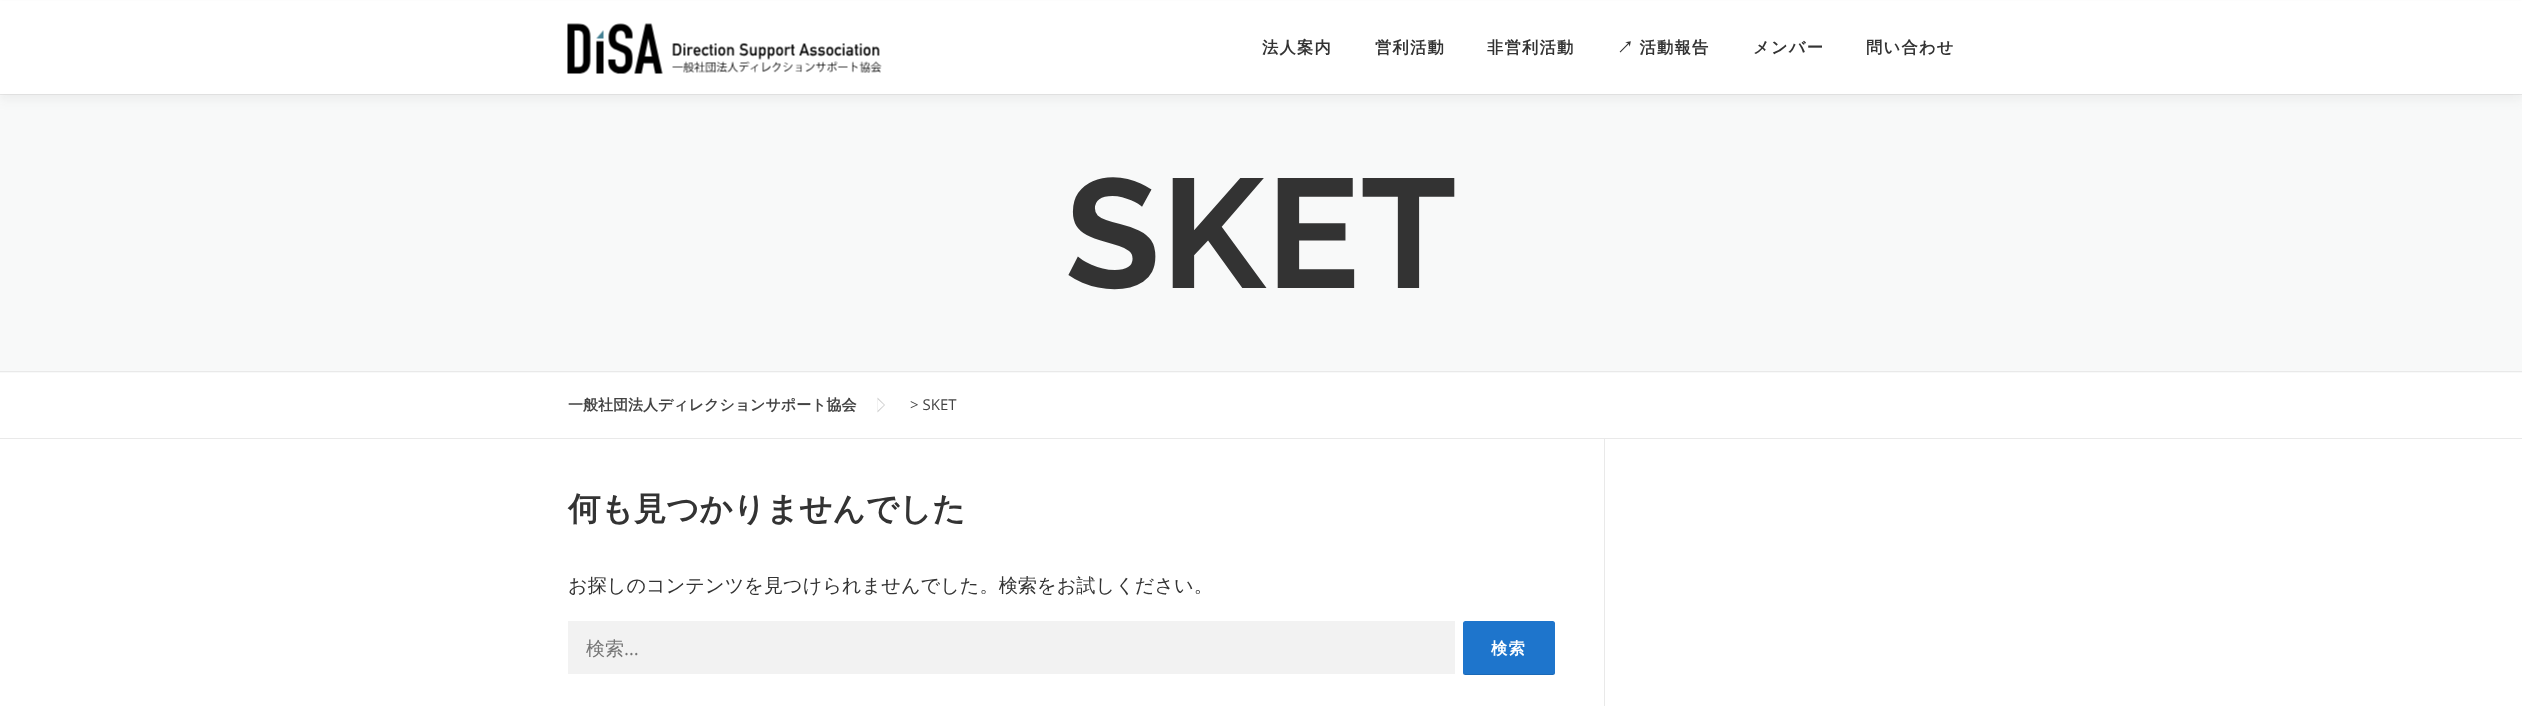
<?xml version="1.0" encoding="UTF-8"?>
<svg xmlns="http://www.w3.org/2000/svg" xmlns:xlink="http://www.w3.org/1999/xlink" width="2522" height="706">
  <rect width="100%" height="100%" fill="#ffffff" />
  <rect y="95" width="2522" height="278" fill="#f8f9f9" />
  <rect y="94" width="2522" height="1" fill="#e9e9e9" />
  <rect y="6" width="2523" height="94" fill="#323232" fill-opacity="0.06" filter="blur(6px)" />
  <rect y="1" width="2522" height="93" fill="#ffffff" />
  <image x="567" y="23" width="315" height="51" xlink:href="image1.png" />
  <rect y="371" width="2522" height="1" fill="#e9e9e9" />
  <rect y="438" width="2522" height="1" fill="#e9e9e9" />
  <path d="M 877.5 412.5 v -15 l 7.5 7.5 z" fill="#cccccc" />
  <path d="M 877.5 411 v -12 l 6.5 6 z" fill="#ffffff" />
  <rect x="1604" y="439" width="1" height="267" fill="#e9e9e9" />
  <rect x="568" y="621" width="887" height="53" fill="#f2f2f2" />
  <rect x="1463" y="621" width="92" height="54" rx="2.5" fill="#1e75cc" />
  <path d="M 1463 673 c 0 1 1 2 3 2 h 86 c 2 0 3 -1 3 -3 v -1 c 0 2 -1 3 -3 3 h -87 z" fill="#000000" fill-opacity="0.1" />
  <text x="1262" y="53" style="font-family: WenQuanYi Zen Hei; font-size: 16.25px; font-weight: bold; letter-spacing: 1.25px; fill: #333333">法人案内</text>
  <text x="1375" y="53" style="font-family: WenQuanYi Zen Hei; font-size: 16.25px; font-weight: bold; letter-spacing: 1.25px; fill: #333333">営利活動</text>
  <text x="1487" y="53" style="font-family: WenQuanYi Zen Hei; font-size: 16.25px; font-weight: bold; letter-spacing: 1.25px; fill: #333333">非営利活動</text>
  <text x="1617" y="53" word-spacing="-1" style="font-family: WenQuanYi Zen Hei; font-size: 16.25px; font-weight: bold; letter-spacing: 1.25px; fill: #333333">↗ 活動報告</text>
  <text x="1753" y="53" style="font-family: WenQuanYi Zen Hei; font-size: 16.25px; font-weight: bold; letter-spacing: 1.25px; fill: #333333">メンバー</text>
  <text x="1866" y="53" style="font-family: WenQuanYi Zen Hei; font-size: 16.25px; font-weight: bold; letter-spacing: 1.25px; fill: #333333">問い合わせ</text>
  <text x="1065" y="288" style="font-family: Raleway; font-size: 155px; font-weight: bold; letter-spacing: 1.25px; fill: #333333">SKET</text>
  <text x="568" y="410" style="font-family: WenQuanYi Zen Hei; font-size: 15px; font-weight: bold; fill: #444444">一般社団法人ディレクションサポート協会</text>
  <text x="910" y="410" style="font-family: Open Sans; font-size: 15px; fill: #444444">&gt; SKET</text>
  <text x="568" y="520" style="font-family: WenQuanYi Zen Hei; font-size: 32.5px; font-weight: bold; fill: #333333">何も見つかりませんでした</text>
  <text x="568" y="592" style="font-family: WenQuanYi Zen Hei; font-size: 19.2px; font-weight: 500; fill: #333333">お探しのコンテンツを見つけられませんでした。検索をお試しください。</text>
  <text x="586" y="655" style="font-family: WenQuanYi Zen Hei; font-size: 19px; font-weight: 500; fill: #757575">検索</text>
  <text x="624" y="655" style="font-family: Open Sans; font-size: 19px; fill: #757575">…</text>
  <text x="1491" y="654" style="font-family: WenQuanYi Zen Hei; font-size: 16.25px; font-weight: bold; letter-spacing: 1.25px; fill: #ffffff">検索</text>
</svg>
